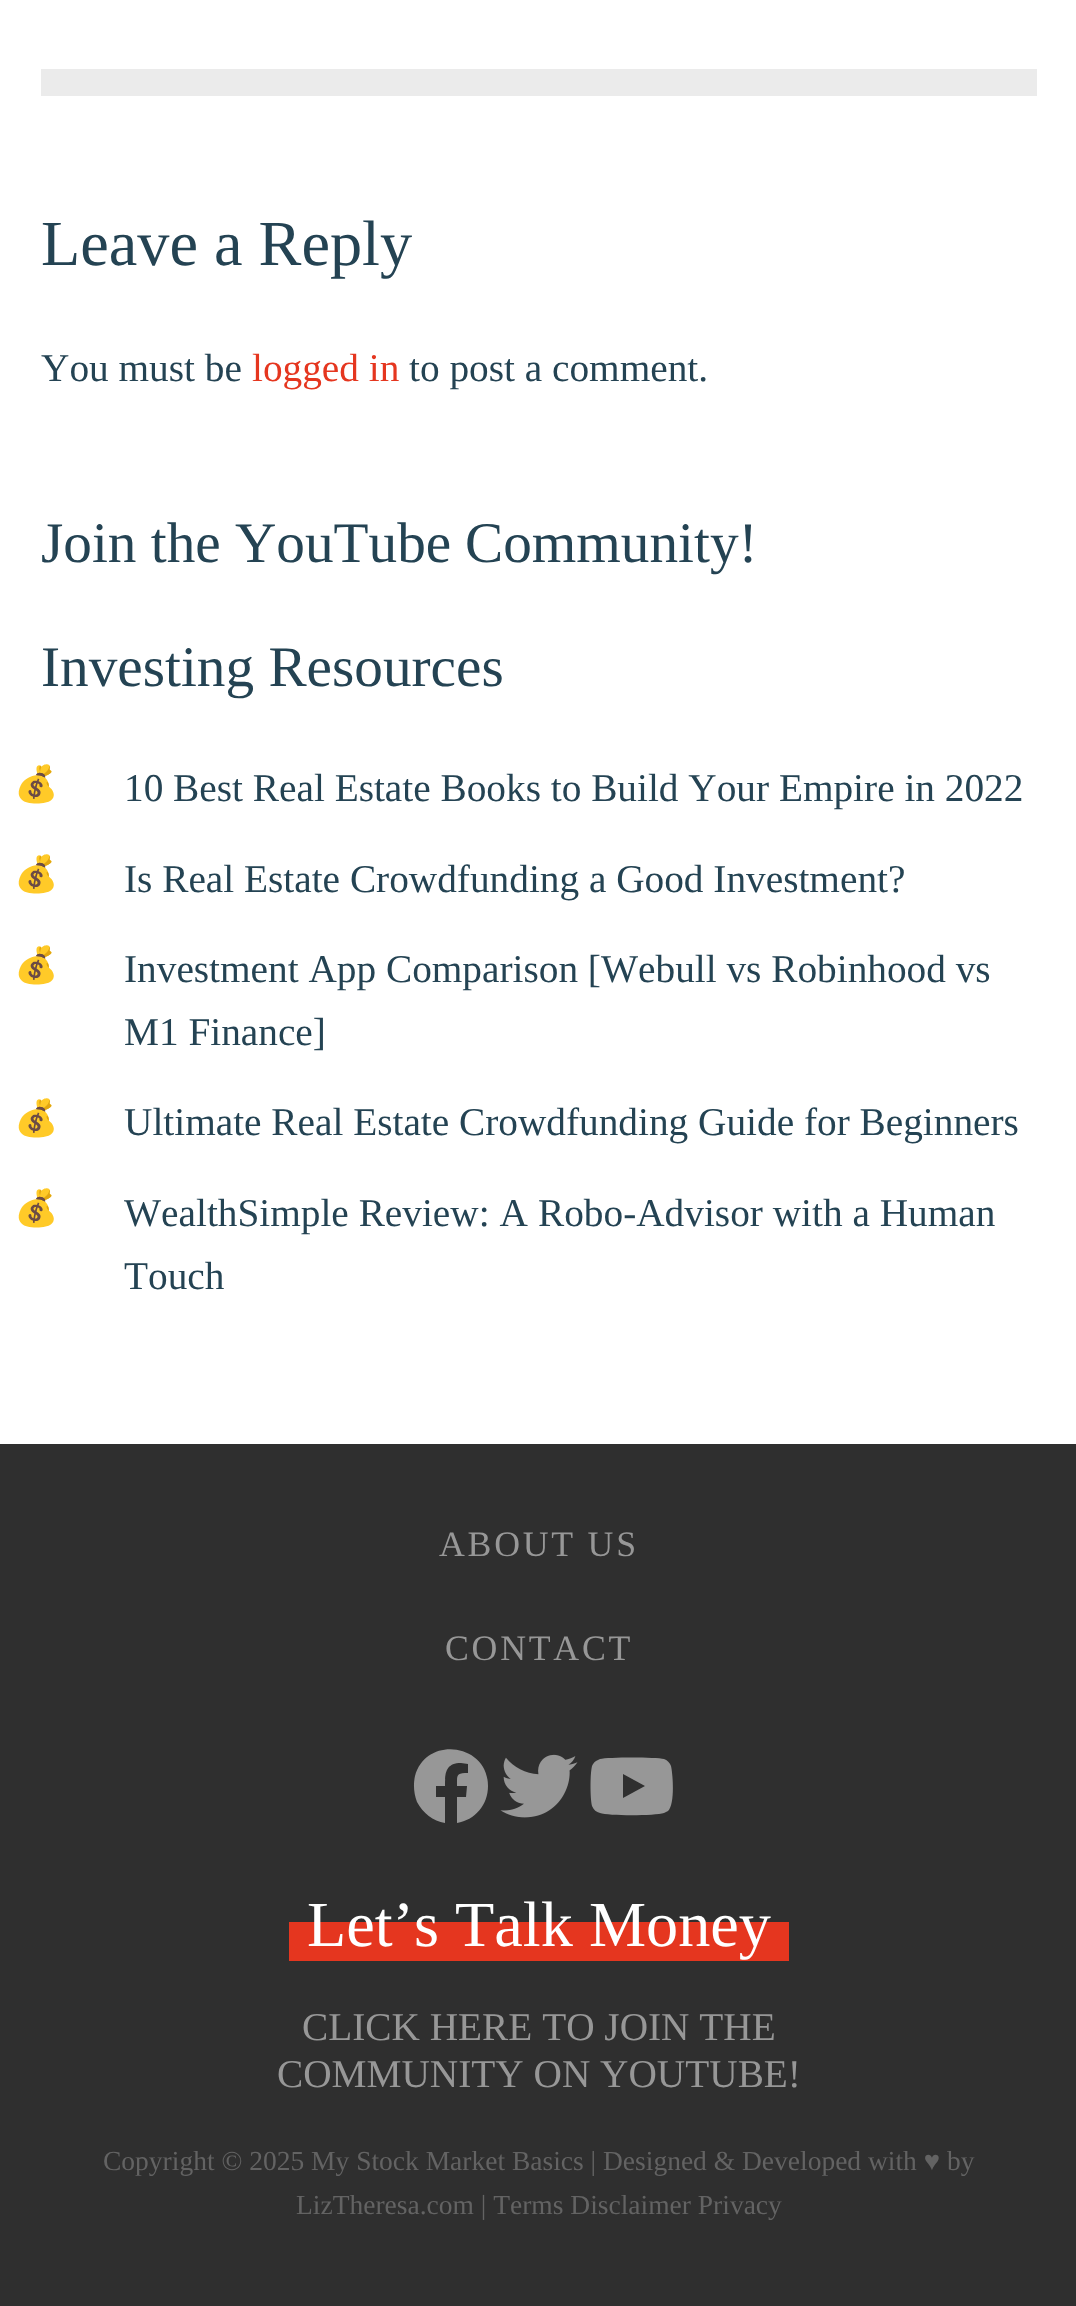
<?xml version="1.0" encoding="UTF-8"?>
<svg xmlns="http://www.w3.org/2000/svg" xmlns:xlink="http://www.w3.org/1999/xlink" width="1076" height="2306">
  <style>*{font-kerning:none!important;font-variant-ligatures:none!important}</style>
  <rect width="100%" height="100%" fill="#ffffff" />
  <rect x="41" y="69" width="996" height="27" fill="#ebebeb" />
  <rect y="1444" width="1076" height="862" fill="#2f2f2f" />
  <path d="M 488 1786 c 0 -43 -62 -51 -73 -10 c -2 9 -1 18 2 26 c 6 11 16 19 28 21 v -26 h -9 v -11 h 9 c 0 -12 0 -23 16 -23 l 7 1 v 9 c -12 0 -11 2 -11 13 h 10 l -1 11 h -9 v 26 c 18 -3 31 -18 31 -37 z" fill="#979797" />
  <image x="500" y="1754" width="78" height="64" xlink:href="image1.png" />
  <path d="M 671 1766 c -1 -3 -4 -6 -7 -7 c -8 -2 -56 -2 -64 0 l -4 2 c -2 1 -3 3 -4 5 c -2 8 -2 32 0 40 c 2 4 4 6 8 7 c 8 3 55 3 64 0 l 4 -2 c 7 -7 5 -36 3 -45 z m -48 32 v -24 l 22 12 z" fill="#979797" />
  <rect x="289" y="1922" width="500" height="39" fill="#e5361f" />
  <text x="41" y="265" style="font-family: Liberation Serif; font-size: 64.25px; fill: #244353">Leave a Reply</text>
  <text x="41" y="381" style="font-family: Liberation Serif; font-size: 39.3px; fill: #244353">You must be</text>
  <text x="252" y="381" style="font-family: Liberation Serif; font-size: 39.3px; fill: #e5361f">logged in</text>
  <text x="409" y="381" style="font-family: Liberation Serif; font-size: 39.3px; fill: #244353">to post a comment.</text>
  <text x="41" y="562" style="font-family: Liberation Serif; font-size: 57.25px; fill: #244353">Join the YouTube</text>
  <text x="465" y="562" style="font-family: Liberation Serif; font-size: 57.25px; fill: #244353">Community!</text>
  <text x="41" y="686" style="font-family: Liberation Serif; font-size: 57.25px; fill: #244353">Investing Resources</text>
  <text x="14" y="796" style="font-family: Noto Color Emoji; font-size: 35.75px; fill: #244353">💰</text>
  <text x="124" y="801" style="font-family: Liberation Serif; font-size: 39.3px; fill: #244353">10 Best Real Estate Books to Build Your Empire in 2022</text>
  <text x="14" y="886" style="font-family: Noto Color Emoji; font-size: 35.75px; fill: #244353">💰</text>
  <text x="124" y="892" style="font-family: Liberation Serif; font-size: 39.3px; fill: #244353">Is Real Estate Crowdfunding a Good Investment?</text>
  <text x="14" y="977" style="font-family: Noto Color Emoji; font-size: 35.75px; fill: #244353">💰</text>
  <text x="124" y="982" style="font-family: Liberation Serif; font-size: 39.3px; fill: #244353">Investment App Comparison [Webull vs Robinhood vs</text>
  <text x="124" y="1045" style="font-family: Liberation Serif; font-size: 39.3px; fill: #244353">M1 Finance]</text>
  <text x="14" y="1130" style="font-family: Noto Color Emoji; font-size: 35.75px; fill: #244353">💰</text>
  <text x="124" y="1135" style="font-family: Liberation Serif; font-size: 39.3px; fill: #244353">Ultimate Real Estate Crowdfunding Guide for Beginners</text>
  <text x="14" y="1220" style="font-family: Noto Color Emoji; font-size: 35.75px; fill: #244353">💰</text>
  <text x="124" y="1226" style="font-family: Liberation Serif; font-size: 39.3px; fill: #244353">WealthSimple Review: A</text>
  <text x="538" y="1226" style="font-family: Liberation Serif; font-size: 39.3px; fill: #244353">Robo-Advisor with a Human</text>
  <text x="124" y="1289" style="font-family: Liberation Serif; font-size: 39.3px; fill: #244353">Touch</text>
  <text x="439" y="1556" style="font-family: Liberation Serif; font-size: 35.75px; letter-spacing: 2.75px; fill: #979797">ABOUT US</text>
  <text x="445" y="1660" style="font-family: Liberation Serif; font-size: 35.75px; letter-spacing: 2.75px; fill: #979797">CONTACT</text>
  <text x="307" y="1946" style="font-family: Liberation Serif; font-size: 64.25px; fill: #ffffff">Let’s Talk Money</text>
  <text x="302" y="2040" style="font-family: Liberation Serif; font-size: 39.3px; fill: #979797">CLICK HERE TO JOIN THE</text>
  <text x="277" y="2087" style="font-family: Liberation Serif; font-size: 39.3px; fill: #979797">COMMUNITY ON YOUTUBE!</text>
  <text x="103" y="2170" style="font-family: Liberation Serif; font-size: 27.5px; fill: #636363">Copyright © 2025 My Stock Market Basics | Designed &amp; Developed with ♥ by</text>
  <text x="296" y="2214" style="font-family: Liberation Serif; font-size: 27.5px; fill: #636363">LizTheresa.com | Terms Disclaimer Privacy</text>
</svg>
